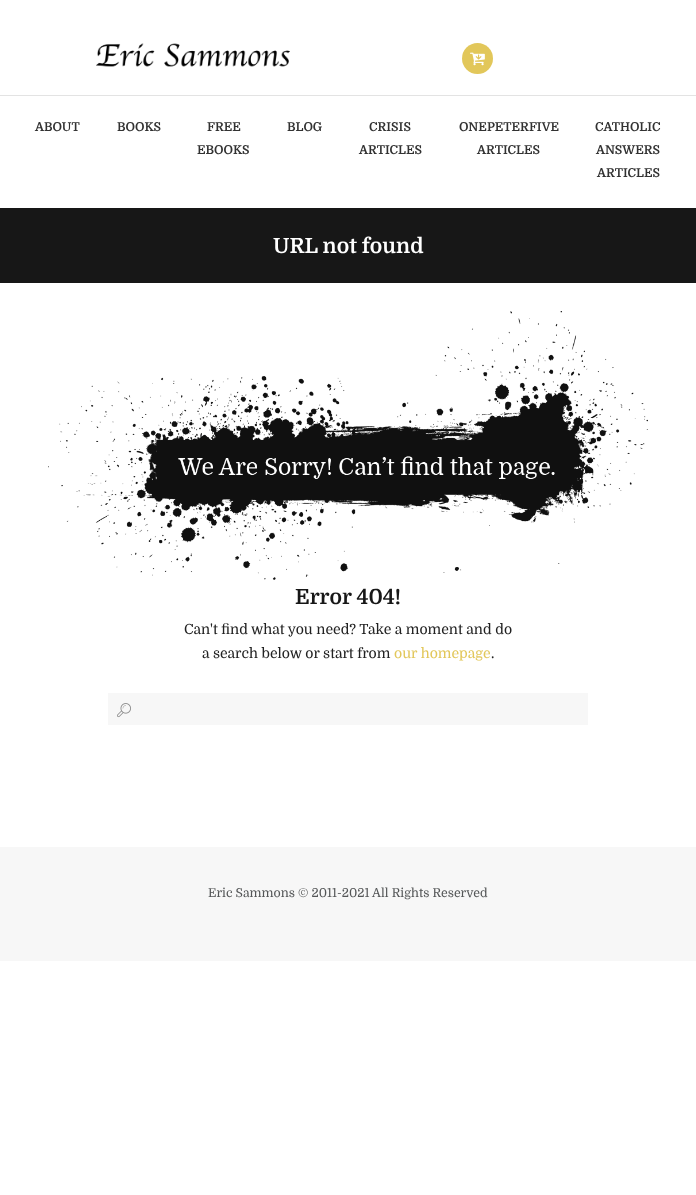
<?xml version="1.0" encoding="UTF-8"?>
<svg xmlns="http://www.w3.org/2000/svg" xmlns:xlink="http://www.w3.org/1999/xlink" width="696" height="1195">
  <rect width="100%" height="100%" fill="#ffffff" />
  <image x="96" y="43" width="194" height="24" xlink:href="image1.png" />
  <circle cx="477.5" cy="58.5" r="15.5" fill="#e2c75a" />
  <image x="470" y="52" width="15" height="14" xlink:href="image2.png" />
  <rect y="95" width="696" height="1" fill="#e3e3e3" />
  <rect y="208" width="696" height="75" fill="#171717" />
  <image x="48" y="311" width="600" height="269" xlink:href="image3.png" />
  <rect x="108" y="693" width="480" height="32" fill="#f7f7f7" />
  <image x="117" y="703" width="14" height="15" xlink:href="image4.png" />
  <rect y="847" width="696" height="114" fill="#f7f7f7" />
  <text x="35" y="131" style="font-family: Domine; font-size: 12.25px; font-weight: bold; fill: #323232">ABOUT</text>
  <text x="117" y="131" style="font-family: Domine; font-size: 12.25px; font-weight: bold; fill: #323232">BOOKS</text>
  <text x="207" y="131" style="font-family: Domine; font-size: 12.25px; font-weight: bold; fill: #323232">FREE</text>
  <text x="197" y="154" style="font-family: Domine; font-size: 12.25px; font-weight: bold; fill: #323232">EBOOKS</text>
  <text x="287" y="131" style="font-family: Domine; font-size: 12.25px; font-weight: bold; fill: #323232">BLOG</text>
  <text x="369" y="131" style="font-family: Domine; font-size: 12.25px; font-weight: bold; fill: #323232">CRISIS</text>
  <text x="359" y="154" style="font-family: Domine; font-size: 12.25px; font-weight: bold; fill: #323232">ARTICLES</text>
  <text x="459" y="131" style="font-family: Domine; font-size: 12.25px; font-weight: bold; fill: #323232">ONEPETERFIVE</text>
  <text x="477" y="154" style="font-family: Domine; font-size: 12.25px; font-weight: bold; fill: #323232">ARTICLES</text>
  <text x="595" y="131" style="font-family: Domine; font-size: 12.25px; font-weight: bold; fill: #323232">CATHOLIC</text>
  <text x="596" y="154" style="font-family: Domine; font-size: 12.25px; font-weight: bold; fill: #323232">ANSWERS</text>
  <text x="597" y="177" style="font-family: Domine; font-size: 12.25px; font-weight: bold; fill: #323232">ARTICLES</text>
  <text x="273" y="253" style="font-family: Domine; font-size: 21px; font-weight: bold; fill: #ffffff">URL not found</text>
  <text x="295" y="604" style="font-family: Domine; font-size: 21px; font-weight: bold; fill: #171717">Error 404!</text>
  <text x="184" y="634" style="font-family: Domine; font-size: 14px; fill: #222222">Can't find what you need? Take a moment and do</text>
  <text x="202" y="658" style="font-family: Domine; font-size: 14px; fill: #222222">a search below or start from</text>
  <text x="394" y="658" style="font-family: Domine; font-size: 14px; fill: #e2c75a">our homepage</text>
  <text x="491" y="658" style="font-family: Domine; font-size: 14px; fill: #222222">.</text>
  <text x="208" y="897" style="font-family: Domine; font-size: 12.3px; fill: #545657">Eric Sammons © 2011-2021 All Rights Reserved</text>
</svg>
